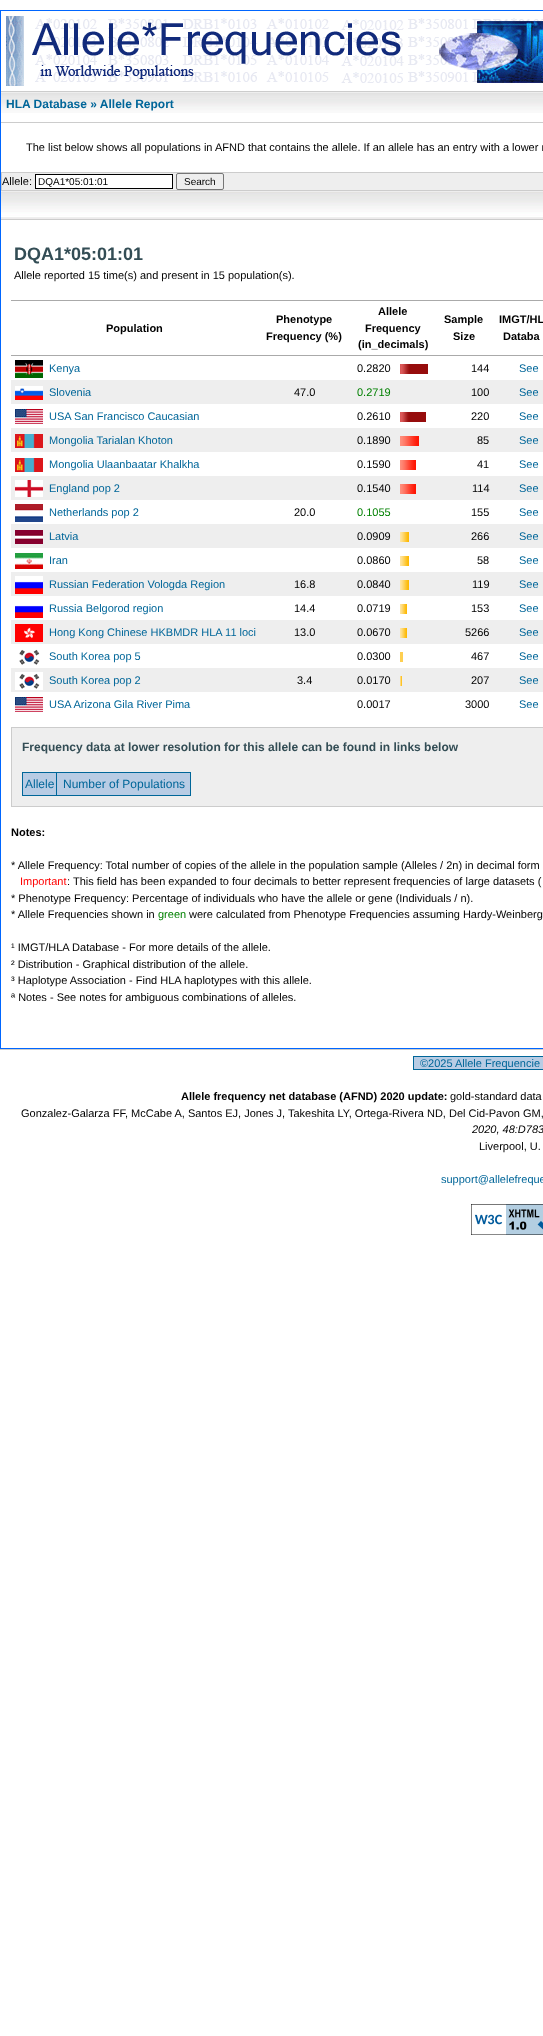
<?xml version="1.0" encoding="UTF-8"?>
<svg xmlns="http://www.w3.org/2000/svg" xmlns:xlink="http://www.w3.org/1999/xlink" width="543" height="2036">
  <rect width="100%" height="100%" fill="#ffffff" />
  <rect x="0.5" y="10.5" width="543" height="1038" fill="none" stroke="#0066ff" />
  <rect x="1" y="91" width="542" height="1" fill="#cccccc" />
  <image x="6" y="16" width="537" height="70" xlink:href="image1.png" />
  <image x="1" y="92" width="542" height="21" xlink:href="image2.png" />
  <rect x="1" y="122" width="542" height="1" fill="#cccccc" />
  <rect x="2" y="173" width="541" height="17" fill="#eeeeee" />
  <rect x="1" y="172" width="542" height="1" fill="#cccccc" />
  <rect x="1" y="172" width="1" height="18" fill="#cccccc" />
  <rect x="35.5" y="174.5" width="137" height="14" fill="#ffffff" stroke="#000000" />
  <rect x="176.5" y="173.5" width="47" height="16" rx="1.5" fill="none" stroke="#767676" />
  <image x="1" y="191" width="542" height="28" xlink:href="image3.png" />
  <rect x="1" y="190" width="542" height="1" fill="#cccccc" />
  <rect x="1" y="219" width="542" height="1" fill="#cccccc" />
  <rect x="11" y="300" width="532" height="1" fill="#aaaaaa" />
  <rect x="11" y="355" width="532" height="1" fill="#aaaaaa" />
  <image x="15" y="360" width="28" height="18" xlink:href="image4.png" />
  <image x="400" y="364" width="28" height="10" xlink:href="image5.png" />
  <rect x="11" y="380" width="532" height="24" fill="#eeeeee" />
  <image x="15" y="386" width="28" height="14" xlink:href="image6.png" />
  <image x="15" y="409" width="28" height="15" xlink:href="image7.png" />
  <image x="400" y="412" width="26" height="10" xlink:href="image8.png" />
  <rect x="11" y="428" width="532" height="24" fill="#eeeeee" />
  <image x="15" y="434" width="28" height="14" xlink:href="image9.png" />
  <image x="400" y="436" width="19" height="10" xlink:href="image10.png" />
  <image x="15" y="458" width="28" height="14" xlink:href="image9.png" />
  <image x="400" y="460" width="16" height="10" xlink:href="image11.png" />
  <rect x="11" y="476" width="532" height="24" fill="#eeeeee" />
  <image x="15" y="480" width="28" height="17" xlink:href="image12.png" />
  <image x="400" y="484" width="16" height="10" xlink:href="image11.png" />
  <image x="15" y="504" width="28" height="18" xlink:href="image13.png" />
  <rect x="11" y="524" width="532" height="24" fill="#eeeeee" />
  <image x="15" y="530" width="28" height="14" xlink:href="image14.png" />
  <image x="400" y="532" width="9" height="10" xlink:href="image15.png" />
  <image x="15" y="553" width="28" height="16" xlink:href="image16.png" />
  <image x="400" y="556" width="9" height="10" xlink:href="image15.png" />
  <rect x="11" y="572" width="532" height="24" fill="#eeeeee" />
  <image x="15" y="576" width="28" height="18" xlink:href="image17.png" />
  <image x="400" y="580" width="9" height="10" xlink:href="image15.png" />
  <image x="15" y="605" width="28" height="13" xlink:href="image18.png" />
  <image x="400" y="604" width="7" height="10" xlink:href="image19.png" />
  <rect x="11" y="620" width="532" height="24" fill="#eeeeee" />
  <image x="15" y="624" width="28" height="18" xlink:href="image20.png" />
  <image x="400" y="628" width="7" height="10" xlink:href="image19.png" />
  <image x="19" y="649" width="21" height="16" xlink:href="image21.png" />
  <rect x="400" y="652" width="3" height="10" fill="#fecf51" />
  <rect x="11" y="668" width="532" height="24" fill="#eeeeee" />
  <image x="15" y="672" width="28" height="18" xlink:href="image22.png" />
  <image x="400" y="676" width="2" height="10" xlink:href="image23.png" />
  <image x="15" y="697" width="28" height="15" xlink:href="image7.png" />
  <rect x="11.5" y="727.5" width="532" height="79" fill="#eeeeee" stroke="#cccccc" />
  <rect x="22" y="795" width="169" height="1" fill="#006699" />
  <rect x="23" y="773" width="33" height="22" fill="#b8cce4" />
  <rect x="56" y="772" width="135" height="1" fill="#006699" />
  <rect x="56" y="772" width="1" height="24" fill="#006699" />
  <rect x="22" y="772" width="35" height="1" fill="#006699" />
  <rect x="22" y="772" width="1" height="24" fill="#006699" />
  <rect x="57" y="773" width="133" height="22" fill="#b8cce4" />
  <rect x="190" y="772" width="1" height="24" fill="#006699" />
  <rect y="1049" width="543" height="1" fill="#cccccc" />
  <rect x="413.5" y="1056.5" width="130" height="13" fill="#b8cce4" stroke="#006699" />
  <image x="471" y="1204" width="72" height="31" xlink:href="image24.png" />
  <text x="6" y="108" style="font-family: Liberation Sans; font-size: 12px; font-weight: bold; fill: #006699">HLA Database » Allele Report</text>
  <text x="26" y="151" style="font-family: Liberation Sans; font-size: 11px; fill: #000000">The list below shows all populations in AFND that contains the allele. If an allele has an entry with a lower r</text>
  <text x="2" y="185" style="font-family: Liberation Sans; font-size: 11px; fill: #000000">Allele:</text>
  <text x="38" y="185" style="font-family: Liberation Sans; font-size: 10px; fill: #000000">DQA1*05:01:01</text>
  <text x="184" y="185" style="font-family: Liberation Sans; font-size: 10px; fill: #000000">Search</text>
  <text x="14" y="260" style="font-family: Liberation Sans; font-size: 18px; font-weight: bold; fill: #334d55">DQA1*05:01:01</text>
  <text x="14" y="279" style="font-family: Liberation Sans; font-size: 11px; fill: #000000">Allele reported 15 time(s) and present in 15 population(s).</text>
  <text x="106" y="332" style="font-family: Liberation Sans; font-size: 11px; font-weight: bold; fill: #000000">Population</text>
  <text x="276" y="323" style="font-family: Liberation Sans; font-size: 11px; font-weight: bold; fill: #000000">Phenotype</text>
  <text x="266" y="340" style="font-family: Liberation Sans; font-size: 11px; font-weight: bold; fill: #000000">Frequency (%)</text>
  <text x="378" y="315" style="font-family: Liberation Sans; font-size: 11px; font-weight: bold; fill: #000000">Allele</text>
  <text x="365" y="332" style="font-family: Liberation Sans; font-size: 11px; font-weight: bold; fill: #000000">Frequency</text>
  <text x="358" y="348" style="font-family: Liberation Sans; font-size: 11px; font-weight: bold; fill: #000000">(in_decimals)</text>
  <text x="444" y="323" style="font-family: Liberation Sans; font-size: 11px; font-weight: bold; fill: #000000">Sample</text>
  <text x="453" y="340" style="font-family: Liberation Sans; font-size: 11px; font-weight: bold; fill: #000000">Size</text>
  <text x="499" y="323" style="font-family: Liberation Sans; font-size: 11px; font-weight: bold; fill: #000000">IMGT/HL</text>
  <text x="503" y="340" style="font-family: Liberation Sans; font-size: 11px; font-weight: bold; fill: #000000">Databa</text>
  <text x="49" y="372" style="font-family: Liberation Sans; font-size: 11px; fill: #006699">Kenya</text>
  <text x="357" y="372" style="font-family: Liberation Sans; font-size: 11px; fill: #000000">0.2820</text>
  <text x="471" y="372" style="font-family: Liberation Sans; font-size: 11px; fill: #000000">144</text>
  <text x="519" y="372" style="font-family: Liberation Sans; font-size: 11px; fill: #006699">See</text>
  <text x="49" y="396" style="font-family: Liberation Sans; font-size: 11px; fill: #006699">Slovenia</text>
  <text x="294" y="396" style="font-family: Liberation Sans; font-size: 11px; fill: #000000">47.0</text>
  <text x="357" y="396" style="font-family: Liberation Sans; font-size: 11px; fill: #008000">0.2719</text>
  <text x="471" y="396" style="font-family: Liberation Sans; font-size: 11px; fill: #000000">100</text>
  <text x="519" y="396" style="font-family: Liberation Sans; font-size: 11px; fill: #006699">See</text>
  <text x="49" y="420" style="font-family: Liberation Sans; font-size: 11px; fill: #006699">USA San Francisco Caucasian</text>
  <text x="357" y="420" style="font-family: Liberation Sans; font-size: 11px; fill: #000000">0.2610</text>
  <text x="471" y="420" style="font-family: Liberation Sans; font-size: 11px; fill: #000000">220</text>
  <text x="519" y="420" style="font-family: Liberation Sans; font-size: 11px; fill: #006699">See</text>
  <text x="49" y="444" style="font-family: Liberation Sans; font-size: 11px; fill: #006699">Mongolia Tarialan Khoton</text>
  <text x="357" y="444" style="font-family: Liberation Sans; font-size: 11px; fill: #000000">0.1890</text>
  <text x="477" y="444" style="font-family: Liberation Sans; font-size: 11px; fill: #000000">85</text>
  <text x="519" y="444" style="font-family: Liberation Sans; font-size: 11px; fill: #006699">See</text>
  <text x="49" y="468" style="font-family: Liberation Sans; font-size: 11px; fill: #006699">Mongolia Ulaanbaatar Khalkha</text>
  <text x="357" y="468" style="font-family: Liberation Sans; font-size: 11px; fill: #000000">0.1590</text>
  <text x="477" y="468" style="font-family: Liberation Sans; font-size: 11px; fill: #000000">41</text>
  <text x="519" y="468" style="font-family: Liberation Sans; font-size: 11px; fill: #006699">See</text>
  <text x="49" y="492" style="font-family: Liberation Sans; font-size: 11px; fill: #006699">England pop 2</text>
  <text x="357" y="492" style="font-family: Liberation Sans; font-size: 11px; fill: #000000">0.1540</text>
  <text x="472" y="492" style="font-family: Liberation Sans; font-size: 11px; fill: #000000">114</text>
  <text x="519" y="492" style="font-family: Liberation Sans; font-size: 11px; fill: #006699">See</text>
  <text x="49" y="516" style="font-family: Liberation Sans; font-size: 11px; fill: #006699">Netherlands pop 2</text>
  <text x="294" y="516" style="font-family: Liberation Sans; font-size: 11px; fill: #000000">20.0</text>
  <text x="357" y="516" style="font-family: Liberation Sans; font-size: 11px; fill: #008000">0.1055</text>
  <text x="471" y="516" style="font-family: Liberation Sans; font-size: 11px; fill: #000000">155</text>
  <text x="519" y="516" style="font-family: Liberation Sans; font-size: 11px; fill: #006699">See</text>
  <text x="49" y="540" style="font-family: Liberation Sans; font-size: 11px; fill: #006699">Latvia</text>
  <text x="357" y="540" style="font-family: Liberation Sans; font-size: 11px; fill: #000000">0.0909</text>
  <text x="471" y="540" style="font-family: Liberation Sans; font-size: 11px; fill: #000000">266</text>
  <text x="519" y="540" style="font-family: Liberation Sans; font-size: 11px; fill: #006699">See</text>
  <text x="49" y="564" style="font-family: Liberation Sans; font-size: 11px; fill: #006699">Iran</text>
  <text x="357" y="564" style="font-family: Liberation Sans; font-size: 11px; fill: #000000">0.0860</text>
  <text x="477" y="564" style="font-family: Liberation Sans; font-size: 11px; fill: #000000">58</text>
  <text x="519" y="564" style="font-family: Liberation Sans; font-size: 11px; fill: #006699">See</text>
  <text x="49" y="588" style="font-family: Liberation Sans; font-size: 11px; fill: #006699">Russian Federation Vologda Region</text>
  <text x="294" y="588" style="font-family: Liberation Sans; font-size: 11px; fill: #000000">16.8</text>
  <text x="357" y="588" style="font-family: Liberation Sans; font-size: 11px; fill: #000000">0.0840</text>
  <text x="472" y="588" style="font-family: Liberation Sans; font-size: 11px; fill: #000000">119</text>
  <text x="519" y="588" style="font-family: Liberation Sans; font-size: 11px; fill: #006699">See</text>
  <text x="49" y="612" style="font-family: Liberation Sans; font-size: 11px; fill: #006699">Russia Belgorod region</text>
  <text x="294" y="612" style="font-family: Liberation Sans; font-size: 11px; fill: #000000">14.4</text>
  <text x="357" y="612" style="font-family: Liberation Sans; font-size: 11px; fill: #000000">0.0719</text>
  <text x="471" y="612" style="font-family: Liberation Sans; font-size: 11px; fill: #000000">153</text>
  <text x="519" y="612" style="font-family: Liberation Sans; font-size: 11px; fill: #006699">See</text>
  <text x="49" y="636" style="font-family: Liberation Sans; font-size: 11px; fill: #006699">Hong Kong Chinese HKBMDR HLA 11 loci</text>
  <text x="294" y="636" style="font-family: Liberation Sans; font-size: 11px; fill: #000000">13.0</text>
  <text x="357" y="636" style="font-family: Liberation Sans; font-size: 11px; fill: #000000">0.0670</text>
  <text x="465" y="636" style="font-family: Liberation Sans; font-size: 11px; fill: #000000">5266</text>
  <text x="519" y="636" style="font-family: Liberation Sans; font-size: 11px; fill: #006699">See</text>
  <text x="49" y="660" style="font-family: Liberation Sans; font-size: 11px; fill: #006699">South Korea pop 5</text>
  <text x="357" y="660" style="font-family: Liberation Sans; font-size: 11px; fill: #000000">0.0300</text>
  <text x="471" y="660" style="font-family: Liberation Sans; font-size: 11px; fill: #000000">467</text>
  <text x="519" y="660" style="font-family: Liberation Sans; font-size: 11px; fill: #006699">See</text>
  <text x="49" y="684" style="font-family: Liberation Sans; font-size: 11px; fill: #006699">South Korea pop 2</text>
  <text x="297" y="684" style="font-family: Liberation Sans; font-size: 11px; fill: #000000">3.4</text>
  <text x="357" y="684" style="font-family: Liberation Sans; font-size: 11px; fill: #000000">0.0170</text>
  <text x="471" y="684" style="font-family: Liberation Sans; font-size: 11px; fill: #000000">207</text>
  <text x="519" y="684" style="font-family: Liberation Sans; font-size: 11px; fill: #006699">See</text>
  <text x="49" y="708" style="font-family: Liberation Sans; font-size: 11px; fill: #006699">USA Arizona Gila River Pima</text>
  <text x="357" y="708" style="font-family: Liberation Sans; font-size: 11px; fill: #000000">0.0017</text>
  <text x="465" y="708" style="font-family: Liberation Sans; font-size: 11px; fill: #000000">3000</text>
  <text x="519" y="708" style="font-family: Liberation Sans; font-size: 11px; fill: #006699">See</text>
  <text x="22" y="751" style="font-family: Liberation Sans; font-size: 12px; font-weight: bold; fill: #334d55">Frequency data at lower resolution for this allele can be found in links below</text>
  <text x="25" y="788" style="font-family: Liberation Sans; font-size: 12px; fill: #006699">Allele</text>
  <text x="63" y="788" style="font-family: Liberation Sans; font-size: 12px; fill: #006699">Number of Populations</text>
  <text x="11" y="836" style="font-family: Liberation Sans; font-size: 11px; font-weight: bold; fill: #000000">Notes:</text>
  <text x="11" y="869" style="font-family: Liberation Sans; font-size: 11px; fill: #000000">* Allele Frequency: Total number of copies of the allele in the population sample (Alleles / 2n) in decimal form</text>
  <text x="20" y="885" style="font-family: Liberation Sans; font-size: 11px; fill: #ff0000">Important</text>
  <text x="67" y="885" style="font-family: Liberation Sans; font-size: 11px; fill: #000000">: This field has been expanded to four decimals to better represent frequencies of large datasets (</text>
  <text x="11" y="902" style="font-family: Liberation Sans; font-size: 11px; fill: #000000">* Phenotype Frequency: Percentage of individuals who have the allele or gene (Individuals / n).</text>
  <text x="11" y="918" style="font-family: Liberation Sans; font-size: 11px; fill: #000000">* Allele Frequencies shown in</text>
  <text x="158" y="918" style="font-family: Liberation Sans; font-size: 11px; fill: #008000">green</text>
  <text x="189" y="918" style="font-family: Liberation Sans; font-size: 11px; fill: #000000">were calculated from Phenotype Frequencies assuming Hardy-Weinberg</text>
  <text x="11" y="951" style="font-family: Liberation Sans; font-size: 11px; fill: #000000">¹ IMGT/HLA Database - For more details of the allele.</text>
  <text x="11" y="968" style="font-family: Liberation Sans; font-size: 11px; fill: #000000">² Distribution - Graphical distribution of the allele.</text>
  <text x="11" y="984" style="font-family: Liberation Sans; font-size: 11px; fill: #000000">³ Haplotype Association - Find HLA haplotypes with this allele.</text>
  <text x="11" y="1001" style="font-family: Liberation Sans; font-size: 11px; fill: #000000">ª Notes - See notes for ambiguous combinations of alleles.</text>
  <text x="420" y="1067" style="font-family: Liberation Sans; font-size: 11px; fill: #006699">©2025 Allele Frequencie</text>
  <text x="181" y="1100" style="font-family: Liberation Sans; font-size: 11px; font-weight: bold; fill: #000000">Allele frequency net database (AFND) 2020 update:</text>
  <text x="450" y="1100" style="font-family: Liberation Sans; font-size: 11px; fill: #000000">gold-standard data</text>
  <text x="21" y="1117" style="font-family: Liberation Sans; font-size: 11px; fill: #000000">Gonzalez-Galarza FF, McCabe A, Santos EJ, Jones J, Takeshita LY, Ortega-Rivera ND, Del Cid-Pavon GM,</text>
  <text x="472" y="1133" style="font-family: Liberation Sans; font-size: 11px; font-style: italic; fill: #000000">2020, 48:D783</text>
  <text x="479" y="1150" style="font-family: Liberation Sans; font-size: 11px; fill: #000000">Liverpool, U.</text>
  <text x="441" y="1183" style="font-family: Liberation Sans; font-size: 11px; fill: #006699">support@allelefreque</text>
</svg>
